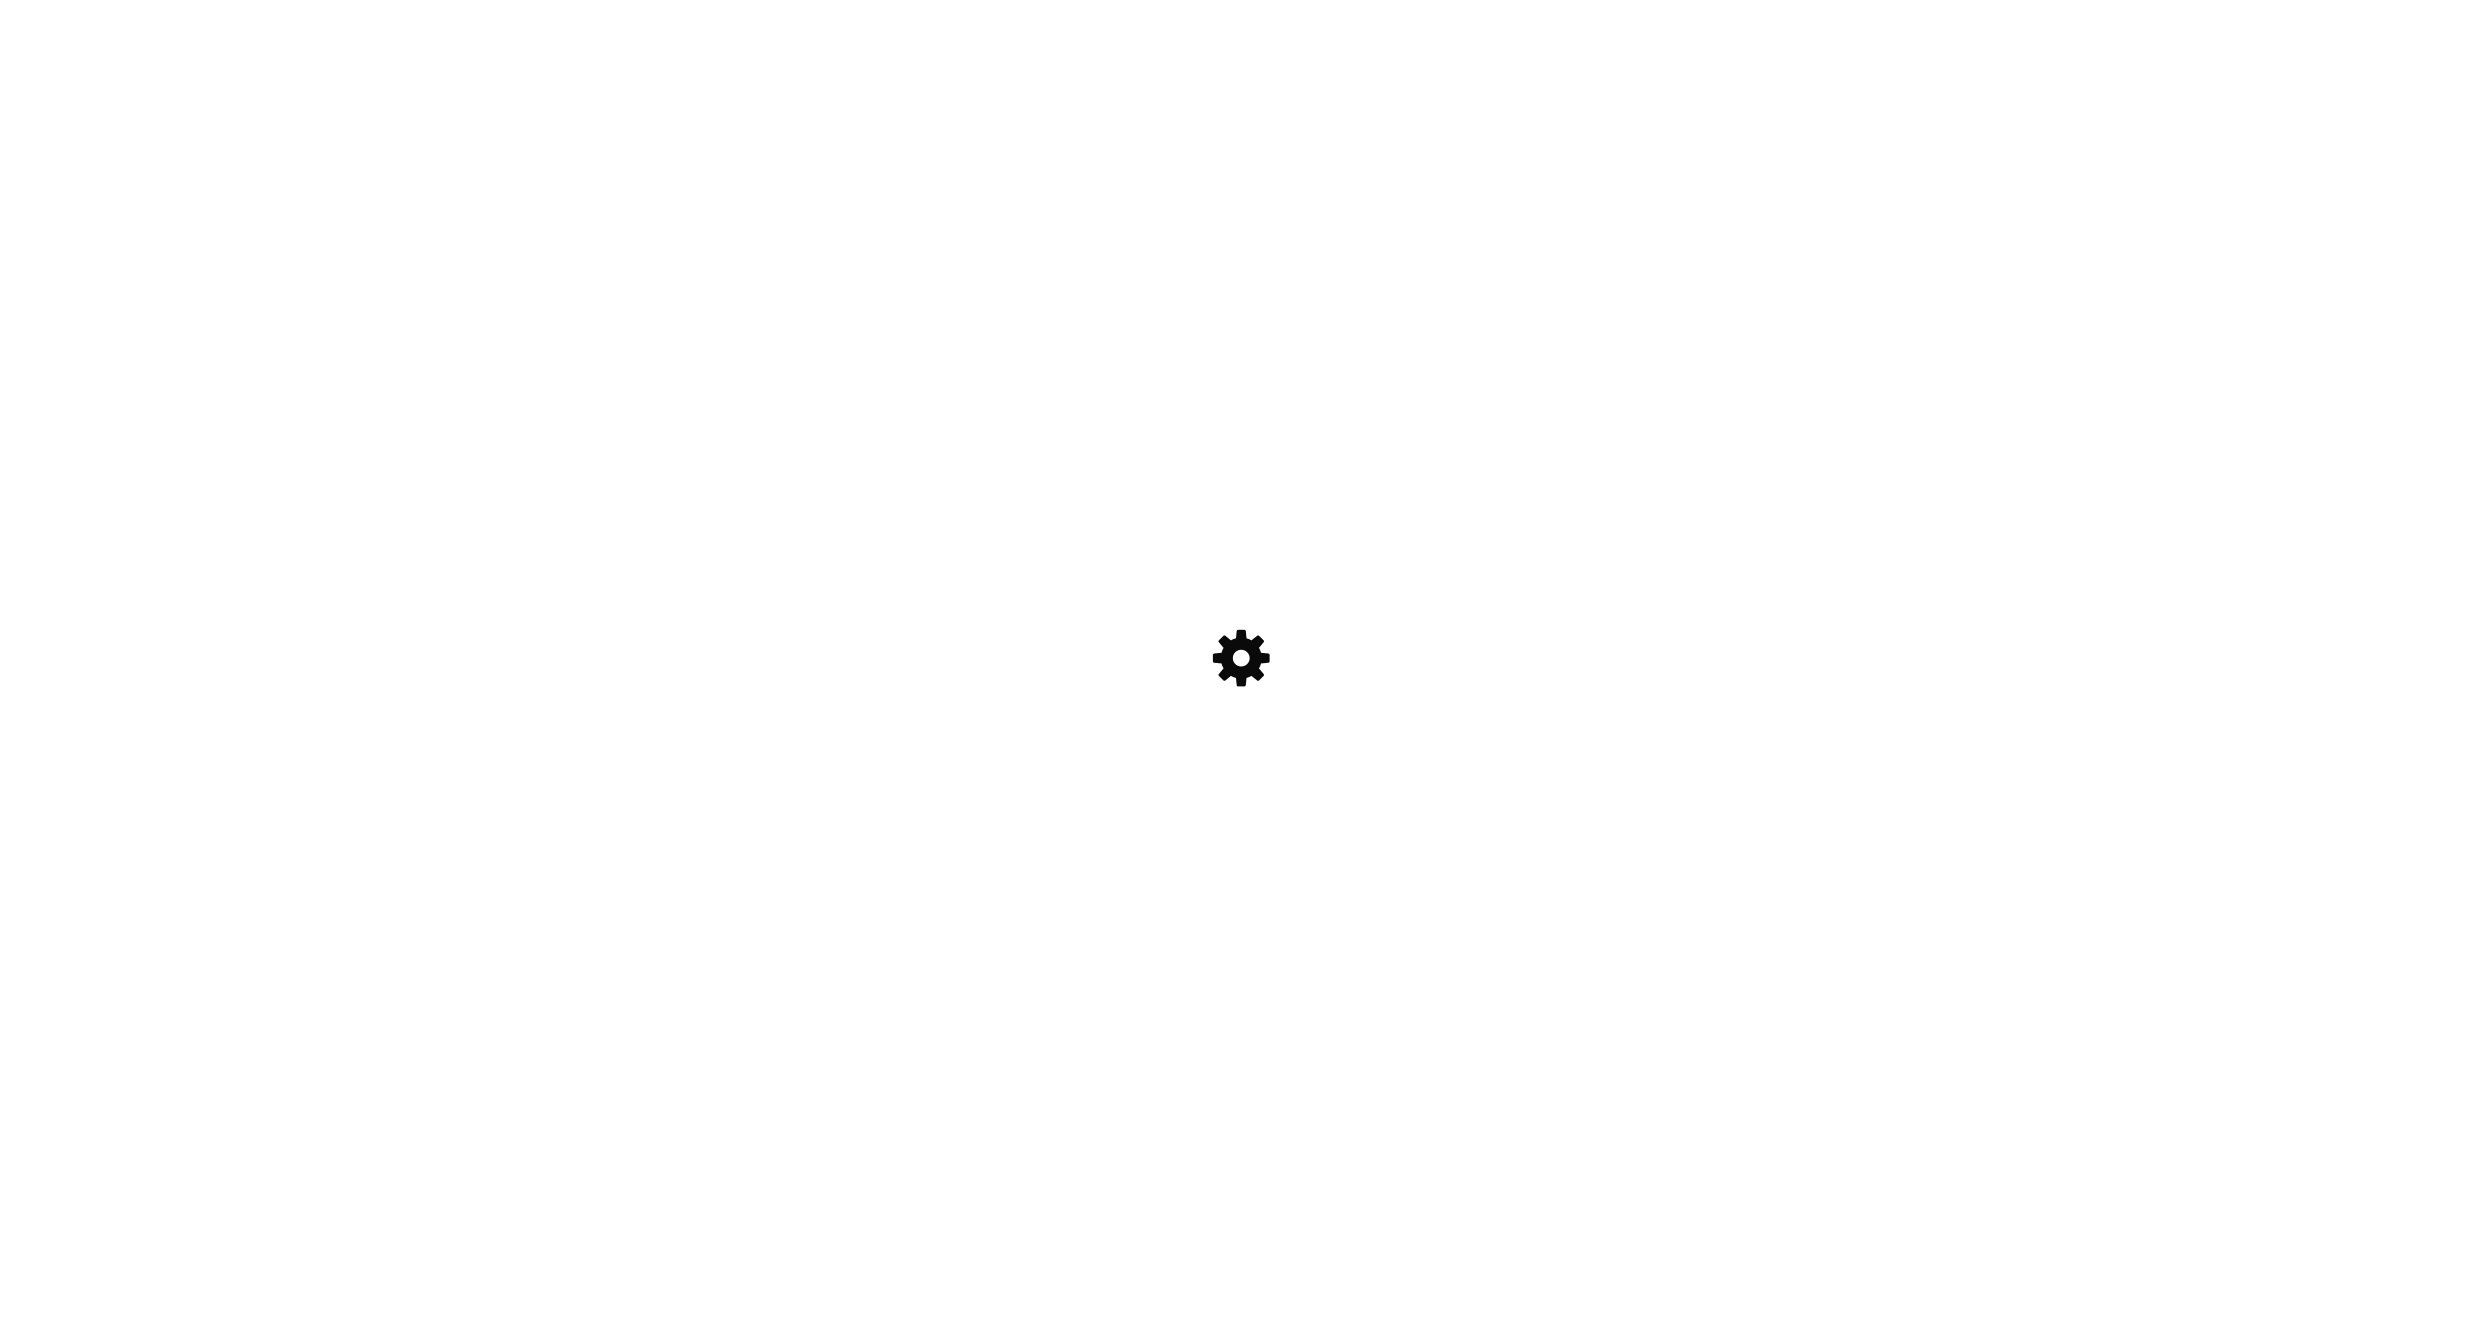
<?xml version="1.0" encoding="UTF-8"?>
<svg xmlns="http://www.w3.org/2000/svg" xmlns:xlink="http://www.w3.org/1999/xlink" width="2482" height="1320">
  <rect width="100%" height="100%" fill="#ffffff" />
  <image x="1212" y="629" width="58" height="58" xlink:href="image1.png" />
</svg>
